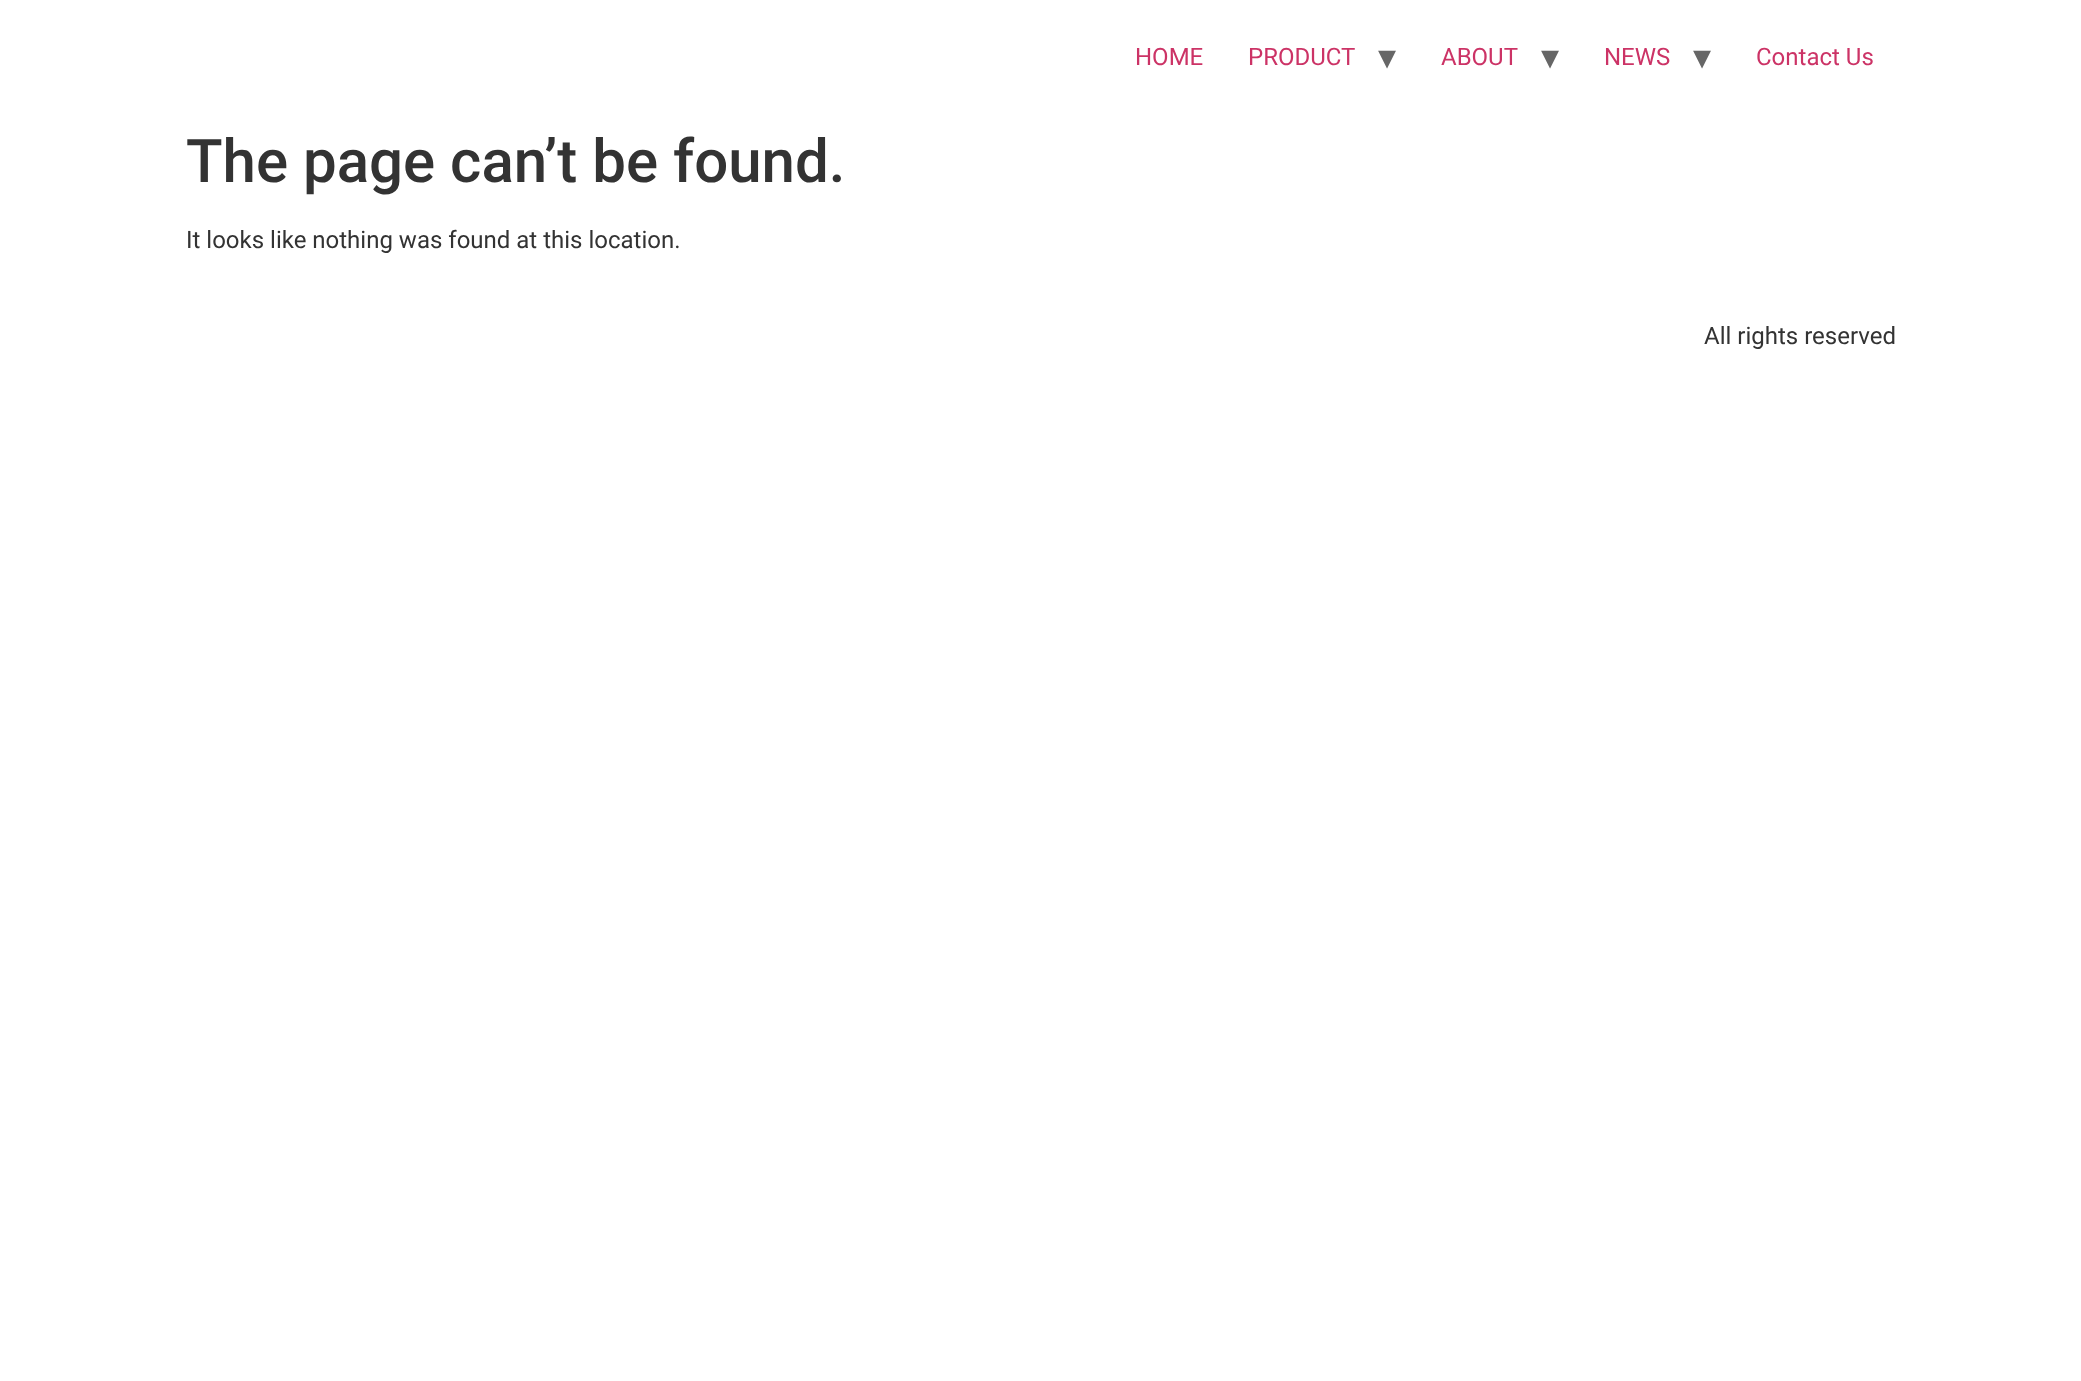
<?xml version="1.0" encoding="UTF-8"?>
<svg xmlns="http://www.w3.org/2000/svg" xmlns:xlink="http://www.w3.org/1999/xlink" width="2081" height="1381">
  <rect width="100%" height="100%" fill="#ffffff" />
  <text x="1135" y="65" style="font-family: Roboto; font-size: 24px; fill: #cc3366">HOME</text>
  <text x="1248" y="65" style="font-family: Roboto; font-size: 24px; fill: #cc3366">PRODUCT</text>
  <text x="1378" y="69" style="font-family: DejaVu Sans; font-size: 36px; fill: #666666">▾</text>
  <text x="1441" y="65" style="font-family: Roboto; font-size: 24px; fill: #cc3366">ABOUT</text>
  <text x="1541" y="69" style="font-family: DejaVu Sans; font-size: 36px; fill: #666666">▾</text>
  <text x="1604" y="65" style="font-family: Roboto; font-size: 24px; fill: #cc3366">NEWS</text>
  <text x="1693" y="69" style="font-family: DejaVu Sans; font-size: 36px; fill: #666666">▾</text>
  <text x="1756" y="65" style="font-family: Roboto; font-size: 24px; fill: #cc3366">Contact Us</text>
  <text x="186" y="182" style="font-family: Roboto; font-size: 60px; font-weight: 500; fill: #333333">The page can’t be found.</text>
  <text x="186" y="248" style="font-family: Roboto; font-size: 24px; fill: #333333">It looks like nothing was found at this location.</text>
  <text x="1704" y="344" style="font-family: Roboto; font-size: 24px; fill: #333333">All rights reserved</text>
</svg>
